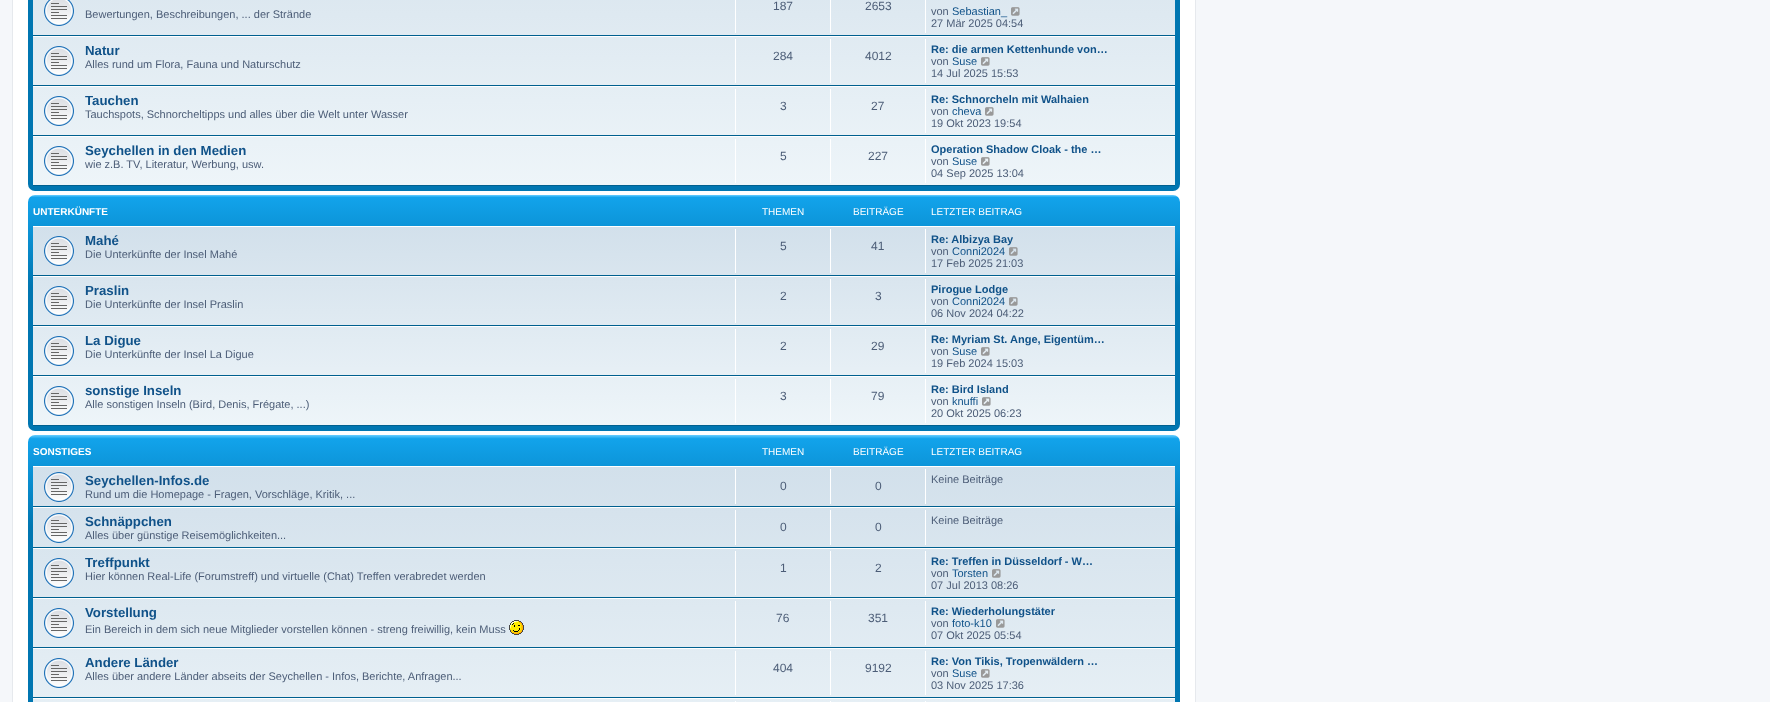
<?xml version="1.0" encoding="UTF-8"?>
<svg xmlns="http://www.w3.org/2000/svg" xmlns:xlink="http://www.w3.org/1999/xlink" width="1770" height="702">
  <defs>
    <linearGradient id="g1" gradientUnits="userSpaceOnUse" x1="604" y1="-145" x2="604" y2="191"><stop offset="0" stop-color="#6aceff" /><stop offset="0.01" stop-color="#12a3eb" /><stop offset="0.27" stop-color="#0076b1" /><stop offset="1" stop-color="#0076b1" /></linearGradient>
    <linearGradient id="g2" gradientUnits="userSpaceOnUse" x1="604" y1="-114" x2="604" y2="186"><stop offset="0" stop-color="#d2e0eb" /><stop offset="1" stop-color="#eef5f9" /></linearGradient>
    <linearGradient id="g3" gradientUnits="userSpaceOnUse" x1="604" y1="195" x2="604" y2="431"><stop offset="0" stop-color="#6aceff" /><stop offset="0.01" stop-color="#12a3eb" /><stop offset="0.39" stop-color="#0076b1" /><stop offset="1" stop-color="#0076b1" /></linearGradient>
    <linearGradient id="g4" gradientUnits="userSpaceOnUse" x1="604" y1="226" x2="604" y2="426"><stop offset="0" stop-color="#d2e0eb" /><stop offset="1" stop-color="#eef5f9" /></linearGradient>
    <linearGradient id="g5" gradientUnits="userSpaceOnUse" x1="604" y1="435" x2="604" y2="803"><stop offset="0" stop-color="#6aceff" /><stop offset="0.01" stop-color="#12a3eb" /><stop offset="0.25" stop-color="#0076b1" /><stop offset="1" stop-color="#0076b1" /></linearGradient>
    <linearGradient id="g6" gradientUnits="userSpaceOnUse" x1="604" y1="466" x2="604" y2="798"><stop offset="0" stop-color="#d2e0eb" /><stop offset="1" stop-color="#eef5f9" /></linearGradient>
  </defs>
  <rect width="100%" height="100%" fill="#f5f7fa" />
  <rect x="12.5" y="-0.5" width="1183" height="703" fill="#ffffff" stroke="#e6e9ed" />
  <rect x="28" y="-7" width="1152" height="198" rx="7" fill="url(#g1)" />
  <rect x="33" width="1142" height="185" fill="url(#g2)" />
  <rect x="33" y="35" width="1142" height="1" fill="#00608f" />
  <image x="44" y="0" width="30" height="26" xlink:href="image1.png" />
  <rect x="735" width="1" height="33" fill="#ffffff" />
  <rect x="830" width="1" height="33" fill="#ffffff" />
  <rect x="925" width="1" height="33" fill="#ffffff" />
  <image x="1011" y="7" width="9" height="9" xlink:href="image2.png" />
  <rect x="33" y="36" width="1142" height="1" fill="#ffffff" />
  <rect x="33" y="85" width="1142" height="1" fill="#00608f" />
  <image x="44" y="46" width="30" height="30" xlink:href="image3.png" />
  <rect x="735" y="39" width="1" height="44" fill="#ffffff" />
  <rect x="830" y="39" width="1" height="44" fill="#ffffff" />
  <rect x="925" y="39" width="1" height="44" fill="#ffffff" />
  <image x="981" y="57" width="9" height="9" xlink:href="image4.png" />
  <rect x="33" y="86" width="1142" height="1" fill="#ffffff" />
  <rect x="33" y="135" width="1142" height="1" fill="#00608f" />
  <image x="44" y="96" width="30" height="30" xlink:href="image5.png" />
  <rect x="735" y="89" width="1" height="44" fill="#ffffff" />
  <rect x="830" y="89" width="1" height="44" fill="#ffffff" />
  <rect x="925" y="89" width="1" height="44" fill="#ffffff" />
  <image x="985" y="107" width="9" height="9" xlink:href="image6.png" />
  <rect x="33" y="136" width="1142" height="1" fill="#ffffff" />
  <rect x="33" y="185" width="1142" height="1" fill="#00608f" />
  <image x="44" y="146" width="30" height="30" xlink:href="image7.png" />
  <rect x="735" y="139" width="1" height="44" fill="#ffffff" />
  <rect x="830" y="139" width="1" height="44" fill="#ffffff" />
  <rect x="925" y="139" width="1" height="44" fill="#ffffff" />
  <image x="981" y="157" width="9" height="9" xlink:href="image8.png" />
  <rect x="28" y="195" width="1152" height="236" rx="7" fill="url(#g3)" />
  <rect x="33" y="227" width="1142" height="198" fill="url(#g4)" />
  <rect x="33" y="226" width="1142" height="1" fill="#ffffff" />
  <rect x="33" y="275" width="1142" height="1" fill="#00608f" />
  <image x="44" y="236" width="30" height="30" xlink:href="image9.png" />
  <rect x="735" y="229" width="1" height="44" fill="#ffffff" />
  <rect x="830" y="229" width="1" height="44" fill="#ffffff" />
  <rect x="925" y="229" width="1" height="44" fill="#ffffff" />
  <image x="1009" y="247" width="9" height="9" xlink:href="image10.png" />
  <rect x="33" y="276" width="1142" height="1" fill="#ffffff" />
  <rect x="33" y="325" width="1142" height="1" fill="#00608f" />
  <image x="44" y="286" width="30" height="30" xlink:href="image11.png" />
  <rect x="735" y="279" width="1" height="44" fill="#ffffff" />
  <rect x="830" y="279" width="1" height="44" fill="#ffffff" />
  <rect x="925" y="279" width="1" height="44" fill="#ffffff" />
  <image x="1009" y="297" width="9" height="9" xlink:href="image12.png" />
  <rect x="33" y="326" width="1142" height="1" fill="#ffffff" />
  <rect x="33" y="375" width="1142" height="1" fill="#00608f" />
  <image x="44" y="336" width="30" height="30" xlink:href="image13.png" />
  <rect x="735" y="329" width="1" height="44" fill="#ffffff" />
  <rect x="830" y="329" width="1" height="44" fill="#ffffff" />
  <rect x="925" y="329" width="1" height="44" fill="#ffffff" />
  <image x="981" y="347" width="9" height="9" xlink:href="image14.png" />
  <rect x="33" y="376" width="1142" height="1" fill="#ffffff" />
  <rect x="33" y="425" width="1142" height="1" fill="#00608f" />
  <image x="44" y="386" width="30" height="30" xlink:href="image15.png" />
  <rect x="735" y="379" width="1" height="44" fill="#ffffff" />
  <rect x="830" y="379" width="1" height="44" fill="#ffffff" />
  <rect x="925" y="379" width="1" height="44" fill="#ffffff" />
  <image x="982" y="397" width="9" height="9" xlink:href="image16.png" />
  <rect x="28" y="435" width="1152" height="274" rx="7" fill="url(#g5)" />
  <rect x="33" y="467" width="1142" height="235" fill="url(#g6)" />
  <rect x="33" y="466" width="1142" height="1" fill="#ffffff" />
  <rect x="33" y="506" width="1142" height="1" fill="#00608f" />
  <image x="44" y="472" width="30" height="30" xlink:href="image17.png" />
  <rect x="735" y="469" width="1" height="35" fill="#ffffff" />
  <rect x="830" y="469" width="1" height="35" fill="#ffffff" />
  <rect x="925" y="469" width="1" height="35" fill="#ffffff" />
  <rect x="33" y="507" width="1142" height="1" fill="#ffffff" />
  <rect x="33" y="547" width="1142" height="1" fill="#00608f" />
  <image x="44" y="513" width="30" height="30" xlink:href="image18.png" />
  <rect x="735" y="510" width="1" height="35" fill="#ffffff" />
  <rect x="830" y="510" width="1" height="35" fill="#ffffff" />
  <rect x="925" y="510" width="1" height="35" fill="#ffffff" />
  <rect x="33" y="548" width="1142" height="1" fill="#ffffff" />
  <rect x="33" y="597" width="1142" height="1" fill="#00608f" />
  <image x="44" y="558" width="30" height="30" xlink:href="image19.png" />
  <rect x="735" y="551" width="1" height="44" fill="#ffffff" />
  <rect x="830" y="551" width="1" height="44" fill="#ffffff" />
  <rect x="925" y="551" width="1" height="44" fill="#ffffff" />
  <image x="992" y="569" width="9" height="9" xlink:href="image20.png" />
  <rect x="33" y="598" width="1142" height="1" fill="#ffffff" />
  <rect x="33" y="647" width="1142" height="1" fill="#00608f" />
  <image x="44" y="608" width="30" height="30" xlink:href="image21.png" />
  <image x="509" y="620" width="15" height="15" xlink:href="image22.png" />
  <rect x="735" y="601" width="1" height="44" fill="#ffffff" />
  <rect x="830" y="601" width="1" height="44" fill="#ffffff" />
  <rect x="925" y="601" width="1" height="44" fill="#ffffff" />
  <image x="996" y="619" width="9" height="9" xlink:href="image23.png" />
  <rect x="33" y="648" width="1142" height="1" fill="#ffffff" />
  <rect x="33" y="697" width="1142" height="1" fill="#00608f" />
  <image x="44" y="658" width="30" height="30" xlink:href="image24.png" />
  <rect x="735" y="651" width="1" height="44" fill="#ffffff" />
  <rect x="830" y="651" width="1" height="44" fill="#ffffff" />
  <rect x="925" y="651" width="1" height="44" fill="#ffffff" />
  <image x="981" y="669" width="9" height="9" xlink:href="image25.png" />
  <rect x="33" y="698" width="1142" height="1" fill="#ffffff" />
  <rect x="735" y="701" width="1" height="1" fill="#ffffff" />
  <rect x="830" y="701" width="1" height="1" fill="#ffffff" />
  <rect x="925" y="701" width="1" height="1" fill="#ffffff" />
  <text x="773" y="10" style="font-family: Liberation Sans; font-size: 12px; fill: #4c5d77">187</text>
  <text x="865" y="10" style="font-family: Liberation Sans; font-size: 12px; fill: #4c5d77">2653</text>
  <text x="85" y="18" style="font-family: Liberation Sans; font-size: 11px; fill: #4c5d77">Bewertungen, Beschreibungen, ... der Strände</text>
  <text x="931" y="15" style="font-family: Liberation Sans; font-size: 11px; fill: #4c5d77">von</text>
  <text x="952" y="15" style="font-family: Liberation Sans; font-size: 11px; fill: #105289">Sebastian_</text>
  <text x="931" y="27" style="font-family: Liberation Sans; font-size: 11px; fill: #4c5d77">27 Mär 2025 04:54</text>
  <text x="85" y="55" style="font-family: Liberation Sans; font-size: 13.25px; font-weight: bold; fill: #105289">Natur</text>
  <text x="85" y="68" style="font-family: Liberation Sans; font-size: 11px; fill: #4c5d77">Alles rund um Flora, Fauna und Naturschutz</text>
  <text x="773" y="60" style="font-family: Liberation Sans; font-size: 12px; fill: #4c5d77">284</text>
  <text x="865" y="60" style="font-family: Liberation Sans; font-size: 12px; fill: #4c5d77">4012</text>
  <text x="931" y="53" style="font-family: Liberation Sans; font-size: 11px; font-weight: bold; fill: #105289">Re: die armen Kettenhunde von…</text>
  <text x="931" y="65" style="font-family: Liberation Sans; font-size: 11px; fill: #4c5d77">von</text>
  <text x="952" y="65" style="font-family: Liberation Sans; font-size: 11px; fill: #105289">Suse</text>
  <text x="931" y="77" style="font-family: Liberation Sans; font-size: 11px; fill: #4c5d77">14 Jul 2025 15:53</text>
  <text x="85" y="105" style="font-family: Liberation Sans; font-size: 13.25px; font-weight: bold; fill: #105289">Tauchen</text>
  <text x="85" y="118" style="font-family: Liberation Sans; font-size: 11px; fill: #4c5d77">Tauchspots, Schnorcheltipps und alles über die Welt unter Wasser</text>
  <text x="780" y="110" style="font-family: Liberation Sans; font-size: 12px; fill: #4c5d77">3</text>
  <text x="871" y="110" style="font-family: Liberation Sans; font-size: 12px; fill: #4c5d77">27</text>
  <text x="931" y="103" style="font-family: Liberation Sans; font-size: 11px; font-weight: bold; fill: #105289">Re: Schnorcheln mit Walhaien</text>
  <text x="931" y="115" style="font-family: Liberation Sans; font-size: 11px; fill: #4c5d77">von</text>
  <text x="952" y="115" style="font-family: Liberation Sans; font-size: 11px; fill: #105289">cheva</text>
  <text x="931" y="127" style="font-family: Liberation Sans; font-size: 11px; fill: #4c5d77">19 Okt 2023 19:54</text>
  <text x="85" y="155" style="font-family: Liberation Sans; font-size: 13.25px; font-weight: bold; fill: #105289">Seychellen in den Medien</text>
  <text x="85" y="168" style="font-family: Liberation Sans; font-size: 11px; fill: #4c5d77">wie z.B. TV, Literatur, Werbung, usw.</text>
  <text x="780" y="160" style="font-family: Liberation Sans; font-size: 12px; fill: #4c5d77">5</text>
  <text x="868" y="160" style="font-family: Liberation Sans; font-size: 12px; fill: #4c5d77">227</text>
  <text x="931" y="153" style="font-family: Liberation Sans; font-size: 11px; font-weight: bold; fill: #105289">Operation Shadow Cloak - the …</text>
  <text x="931" y="165" style="font-family: Liberation Sans; font-size: 11px; fill: #4c5d77">von</text>
  <text x="952" y="165" style="font-family: Liberation Sans; font-size: 11px; fill: #105289">Suse</text>
  <text x="931" y="177" style="font-family: Liberation Sans; font-size: 11px; fill: #4c5d77">04 Sep 2025 13:04</text>
  <text x="33" y="215" style="font-family: Liberation Sans; font-size: 10px; font-weight: bold; fill: #ffffff">UNTERKÜNFTE</text>
  <text x="762" y="215" style="font-family: Liberation Sans; font-size: 10px; fill: #ffffff">THEMEN</text>
  <text x="853" y="215" style="font-family: Liberation Sans; font-size: 10px; fill: #ffffff">BEITRÄGE</text>
  <text x="931" y="215" style="font-family: Liberation Sans; font-size: 10px; fill: #ffffff">LETZTER BEITRAG</text>
  <text x="85" y="245" style="font-family: Liberation Sans; font-size: 13.25px; font-weight: bold; fill: #105289">Mahé</text>
  <text x="85" y="258" style="font-family: Liberation Sans; font-size: 11px; fill: #4c5d77">Die Unterkünfte der Insel Mahé</text>
  <text x="780" y="250" style="font-family: Liberation Sans; font-size: 12px; fill: #4c5d77">5</text>
  <text x="871" y="250" style="font-family: Liberation Sans; font-size: 12px; fill: #4c5d77">41</text>
  <text x="931" y="243" style="font-family: Liberation Sans; font-size: 11px; font-weight: bold; fill: #105289">Re: Albizya Bay</text>
  <text x="931" y="255" style="font-family: Liberation Sans; font-size: 11px; fill: #4c5d77">von</text>
  <text x="952" y="255" style="font-family: Liberation Sans; font-size: 11px; fill: #105289">Conni2024</text>
  <text x="931" y="267" style="font-family: Liberation Sans; font-size: 11px; fill: #4c5d77">17 Feb 2025 21:03</text>
  <text x="85" y="295" style="font-family: Liberation Sans; font-size: 13.25px; font-weight: bold; fill: #105289">Praslin</text>
  <text x="85" y="308" style="font-family: Liberation Sans; font-size: 11px; fill: #4c5d77">Die Unterkünfte der Insel Praslin</text>
  <text x="780" y="300" style="font-family: Liberation Sans; font-size: 12px; fill: #4c5d77">2</text>
  <text x="875" y="300" style="font-family: Liberation Sans; font-size: 12px; fill: #4c5d77">3</text>
  <text x="931" y="293" style="font-family: Liberation Sans; font-size: 11px; font-weight: bold; fill: #105289">Pirogue Lodge</text>
  <text x="931" y="305" style="font-family: Liberation Sans; font-size: 11px; fill: #4c5d77">von</text>
  <text x="952" y="305" style="font-family: Liberation Sans; font-size: 11px; fill: #105289">Conni2024</text>
  <text x="931" y="317" style="font-family: Liberation Sans; font-size: 11px; fill: #4c5d77">06 Nov 2024 04:22</text>
  <text x="85" y="345" style="font-family: Liberation Sans; font-size: 13.25px; font-weight: bold; fill: #105289">La Digue</text>
  <text x="85" y="358" style="font-family: Liberation Sans; font-size: 11px; fill: #4c5d77">Die Unterkünfte der Insel La Digue</text>
  <text x="780" y="350" style="font-family: Liberation Sans; font-size: 12px; fill: #4c5d77">2</text>
  <text x="871" y="350" style="font-family: Liberation Sans; font-size: 12px; fill: #4c5d77">29</text>
  <text x="931" y="343" style="font-family: Liberation Sans; font-size: 11px; font-weight: bold; fill: #105289">Re: Myriam St. Ange, Eigentüm…</text>
  <text x="931" y="355" style="font-family: Liberation Sans; font-size: 11px; fill: #4c5d77">von</text>
  <text x="952" y="355" style="font-family: Liberation Sans; font-size: 11px; fill: #105289">Suse</text>
  <text x="931" y="367" style="font-family: Liberation Sans; font-size: 11px; fill: #4c5d77">19 Feb 2024 15:03</text>
  <text x="85" y="395" style="font-family: Liberation Sans; font-size: 13.25px; font-weight: bold; fill: #105289">sonstige Inseln</text>
  <text x="85" y="408" style="font-family: Liberation Sans; font-size: 11px; fill: #4c5d77">Alle sonstigen Inseln (Bird, Denis, Frégate, ...)</text>
  <text x="780" y="400" style="font-family: Liberation Sans; font-size: 12px; fill: #4c5d77">3</text>
  <text x="871" y="400" style="font-family: Liberation Sans; font-size: 12px; fill: #4c5d77">79</text>
  <text x="931" y="393" style="font-family: Liberation Sans; font-size: 11px; font-weight: bold; fill: #105289">Re: Bird Island</text>
  <text x="931" y="405" style="font-family: Liberation Sans; font-size: 11px; fill: #4c5d77">von</text>
  <text x="952" y="405" style="font-family: Liberation Sans; font-size: 11px; fill: #105289">knuffi</text>
  <text x="931" y="417" style="font-family: Liberation Sans; font-size: 11px; fill: #4c5d77">20 Okt 2025 06:23</text>
  <text x="33" y="455" style="font-family: Liberation Sans; font-size: 10px; font-weight: bold; fill: #ffffff">SONSTIGES</text>
  <text x="762" y="455" style="font-family: Liberation Sans; font-size: 10px; fill: #ffffff">THEMEN</text>
  <text x="853" y="455" style="font-family: Liberation Sans; font-size: 10px; fill: #ffffff">BEITRÄGE</text>
  <text x="931" y="455" style="font-family: Liberation Sans; font-size: 10px; fill: #ffffff">LETZTER BEITRAG</text>
  <text x="85" y="485" style="font-family: Liberation Sans; font-size: 13.25px; font-weight: bold; fill: #105289">Seychellen-Infos.de</text>
  <text x="85" y="498" style="font-family: Liberation Sans; font-size: 11px; fill: #4c5d77">Rund um die Homepage - Fragen, Vorschläge, Kritik, ...</text>
  <text x="780" y="490" style="font-family: Liberation Sans; font-size: 12px; fill: #4c5d77">0</text>
  <text x="875" y="490" style="font-family: Liberation Sans; font-size: 12px; fill: #4c5d77">0</text>
  <text x="931" y="483" style="font-family: Liberation Sans; font-size: 11px; fill: #4c5d77">Keine Beiträge</text>
  <text x="85" y="526" style="font-family: Liberation Sans; font-size: 13.25px; font-weight: bold; fill: #105289">Schnäppchen</text>
  <text x="85" y="539" style="font-family: Liberation Sans; font-size: 11px; fill: #4c5d77">Alles über günstige Reisemöglichkeiten...</text>
  <text x="780" y="531" style="font-family: Liberation Sans; font-size: 12px; fill: #4c5d77">0</text>
  <text x="875" y="531" style="font-family: Liberation Sans; font-size: 12px; fill: #4c5d77">0</text>
  <text x="931" y="524" style="font-family: Liberation Sans; font-size: 11px; fill: #4c5d77">Keine Beiträge</text>
  <text x="85" y="567" style="font-family: Liberation Sans; font-size: 13.25px; font-weight: bold; fill: #105289">Treffpunkt</text>
  <text x="85" y="580" style="font-family: Liberation Sans; font-size: 11px; fill: #4c5d77">Hier können Real-Life (Forumstreff) und virtuelle (Chat) Treffen verabredet werden</text>
  <text x="780" y="572" style="font-family: Liberation Sans; font-size: 12px; fill: #4c5d77">1</text>
  <text x="875" y="572" style="font-family: Liberation Sans; font-size: 12px; fill: #4c5d77">2</text>
  <text x="931" y="565" style="font-family: Liberation Sans; font-size: 11px; font-weight: bold; fill: #105289">Re: Treffen in Düsseldorf - W…</text>
  <text x="931" y="577" style="font-family: Liberation Sans; font-size: 11px; fill: #4c5d77">von</text>
  <text x="952" y="577" style="font-family: Liberation Sans; font-size: 11px; fill: #105289">Torsten</text>
  <text x="931" y="589" style="font-family: Liberation Sans; font-size: 11px; fill: #4c5d77">07 Jul 2013 08:26</text>
  <text x="85" y="617" style="font-family: Liberation Sans; font-size: 13.25px; font-weight: bold; fill: #105289">Vorstellung</text>
  <text x="85" y="633" style="font-family: Liberation Sans; font-size: 11px; fill: #4c5d77">Ein Bereich in dem sich neue Mitglieder vorstellen können - streng freiwillig, kein Muss</text>
  <text x="776" y="622" style="font-family: Liberation Sans; font-size: 12px; fill: #4c5d77">76</text>
  <text x="868" y="622" style="font-family: Liberation Sans; font-size: 12px; fill: #4c5d77">351</text>
  <text x="931" y="615" style="font-family: Liberation Sans; font-size: 11px; font-weight: bold; fill: #105289">Re: Wiederholungstäter</text>
  <text x="931" y="627" style="font-family: Liberation Sans; font-size: 11px; fill: #4c5d77">von</text>
  <text x="952" y="627" style="font-family: Liberation Sans; font-size: 11px; fill: #105289">foto-k10</text>
  <text x="931" y="639" style="font-family: Liberation Sans; font-size: 11px; fill: #4c5d77">07 Okt 2025 05:54</text>
  <text x="85" y="667" style="font-family: Liberation Sans; font-size: 13.25px; font-weight: bold; fill: #105289">Andere Länder</text>
  <text x="85" y="680" style="font-family: Liberation Sans; font-size: 11px; fill: #4c5d77">Alles über andere Länder abseits der Seychellen - Infos, Berichte, Anfragen...</text>
  <text x="773" y="672" style="font-family: Liberation Sans; font-size: 12px; fill: #4c5d77">404</text>
  <text x="865" y="672" style="font-family: Liberation Sans; font-size: 12px; fill: #4c5d77">9192</text>
  <text x="931" y="665" style="font-family: Liberation Sans; font-size: 11px; font-weight: bold; fill: #105289">Re: Von Tikis, Tropenwäldern …</text>
  <text x="931" y="677" style="font-family: Liberation Sans; font-size: 11px; fill: #4c5d77">von</text>
  <text x="952" y="677" style="font-family: Liberation Sans; font-size: 11px; fill: #105289">Suse</text>
  <text x="931" y="689" style="font-family: Liberation Sans; font-size: 11px; fill: #4c5d77">03 Nov 2025 17:36</text>
</svg>
